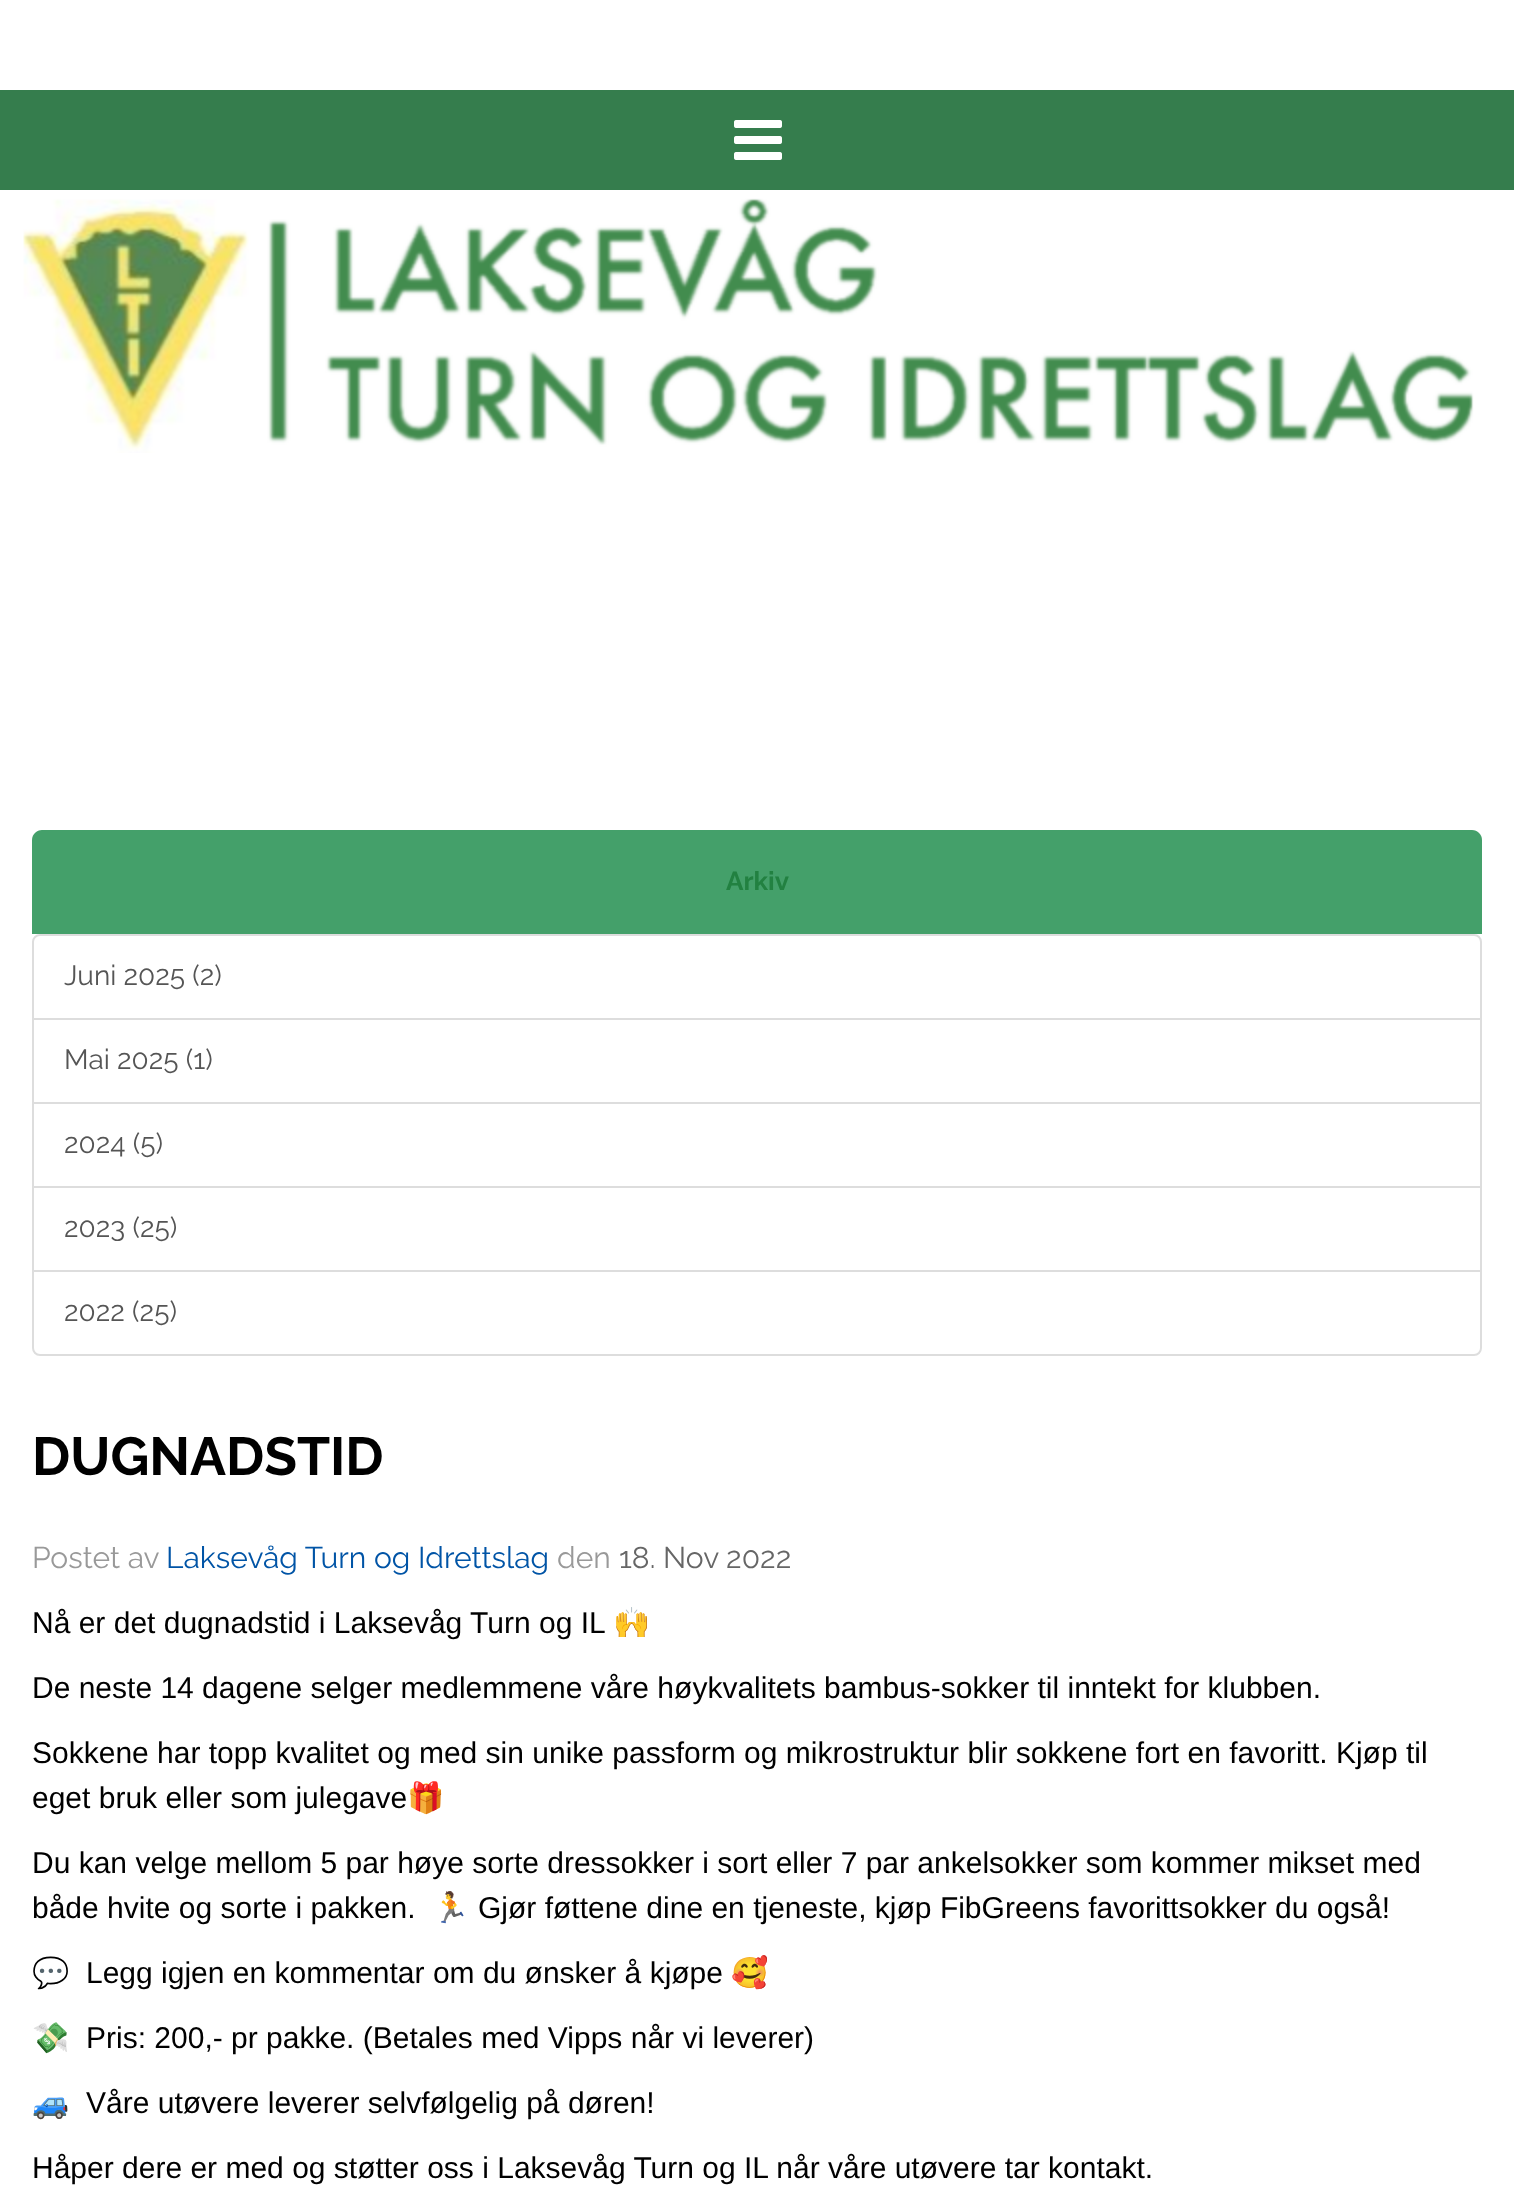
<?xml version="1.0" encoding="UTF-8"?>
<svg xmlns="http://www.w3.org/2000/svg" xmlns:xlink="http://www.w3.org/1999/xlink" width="1514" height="2186">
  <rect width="100%" height="100%" fill="#ffffff" />
  <rect y="90" width="1514" height="100" fill="#357d4d" />
  <image x="734" y="120" width="48" height="40" xlink:href="image1.png" />
  <image x="23" y="198" width="1451" height="255" xlink:href="image2.png" />
  <path d="M 42 830 h 1430 c 5.5 0 10 4.5 10 10 v 94 h -1450 v -94 c 0 -5.5 4.5 -10 10 -10 z" fill="#44a06a" />
  <path d="M 40 935 h 1434 c 4 0 7 3 7 7 v 77 h -1448 v -77 c 0 -4 3 -7 7 -7 z" fill="none" stroke="#dddddd" stroke-width="2" />
  <rect x="33" y="1019" width="1448" height="84" fill="none" stroke="#dddddd" stroke-width="2" />
  <rect x="33" y="1103" width="1448" height="84" fill="none" stroke="#dddddd" stroke-width="2" />
  <rect x="33" y="1187" width="1448" height="84" fill="none" stroke="#dddddd" stroke-width="2" />
  <path d="M 33 1271 h 1448 v 77 c 0 4 -3 7 -7 7 h -1434 c -4 0 -7 -3 -7 -7 z" fill="#ffffff" stroke="#dddddd" stroke-width="2" />
  <text x="726" y="890" style="font-family: Raleway; font-size: 26px; font-weight: bold; fill: #228141">Arkiv</text>
  <text x="64" y="985" style="font-family: Raleway; font-size: 28px; fill: #555555">Juni 2025 (2)</text>
  <text x="64" y="1069" style="font-family: Raleway; font-size: 28px; fill: #555555">Mai 2025 (1)</text>
  <text x="64" y="1153" style="font-family: Raleway; font-size: 28px; fill: #555555">2024 (5)</text>
  <text x="64" y="1237" style="font-family: Raleway; font-size: 28px; fill: #555555">2023 (25)</text>
  <text x="64" y="1321" style="font-family: Raleway; font-size: 28px; fill: #555555">2022 (25)</text>
  <text x="32" y="1475" style="font-family: Raleway; font-size: 53.5px; font-weight: bold; fill: #000000">DUGNADSTID</text>
  <text x="32" y="1568" style="font-family: Raleway; font-size: 30px; fill: #999999">Postet av</text>
  <text x="166" y="1568" style="font-family: Raleway; font-size: 30px; fill: #0054a6">Laksevåg Turn og Idrettslag</text>
  <text x="557" y="1568" style="font-family: Raleway; font-size: 30px; fill: #999999">den</text>
  <text x="619" y="1568" style="font-family: Raleway; font-size: 30px; fill: #666666">18. Nov 2022</text>
  <text x="32" y="1633" style="font-family: Liberation Sans; font-size: 30px; fill: #000000">Nå er det dugnadstid i Laksevåg Turn og IL</text>
  <text x="613" y="1633" style="font-family: Noto Color Emoji; font-size: 30px; fill: #000000">🙌</text>
  <text x="32" y="1698" style="font-family: Liberation Sans; font-size: 30px; fill: #000000">De neste 14 dagene selger medlemmene våre høykvalitets bambus-sokker til inntekt for klubben.</text>
  <text x="32" y="1763" style="font-family: Liberation Sans; font-size: 30px; fill: #000000">Sokkene har topp kvalitet og med sin unike passform og mikrostruktur blir sokkene fort en favoritt. Kjøp til</text>
  <text x="32" y="1808" style="font-family: Liberation Sans; font-size: 30px; fill: #000000">eget bruk eller som julegave</text>
  <text x="407" y="1808" style="font-family: Noto Color Emoji; font-size: 30px; fill: #000000">🎁</text>
  <text x="32" y="1873" style="font-family: Liberation Sans; font-size: 30px; fill: #000000">Du kan velge mellom 5 par høye sorte dressokker i sort eller 7 par ankelsokker som kommer mikset med</text>
  <text x="32" y="1918" style="font-family: Liberation Sans; font-size: 30px; fill: #000000">både hvite og sorte i pakken.</text>
  <text x="432" y="1918" style="font-family: Noto Color Emoji; font-size: 30px; fill: #000000">🏃</text>
  <text x="478" y="1918" style="font-family: Liberation Sans; font-size: 30px; fill: #000000">Gjør føttene dine en tjeneste, kjøp FibGreens favorittsokker du også!</text>
  <text x="32" y="1983" style="font-family: Noto Color Emoji; font-size: 30px; fill: #000000">💬</text>
  <text x="86" y="1983" style="font-family: Liberation Sans; font-size: 30px; fill: #000000">Legg igjen en kommentar om du ønsker å kjøpe</text>
  <text x="731" y="1983" style="font-family: Noto Color Emoji; font-size: 30px; fill: #000000">🥰</text>
  <text x="32" y="2048" style="font-family: Noto Color Emoji; font-size: 30px; fill: #000000">💸</text>
  <text x="86" y="2048" style="font-family: Liberation Sans; font-size: 30px; fill: #000000">Pris: 200,- pr pakke. (Betales med Vipps når vi leverer)</text>
  <text x="32" y="2113" style="font-family: Noto Color Emoji; font-size: 30px; fill: #000000">🚙</text>
  <text x="86" y="2113" style="font-family: Liberation Sans; font-size: 30px; fill: #000000">Våre utøvere leverer selvfølgelig på døren!</text>
  <text x="32" y="2178" style="font-family: Liberation Sans; font-size: 30px; fill: #000000">Håper dere er med og støtter oss i Laksevåg Turn og IL når våre utøvere tar kontakt.</text>
</svg>
